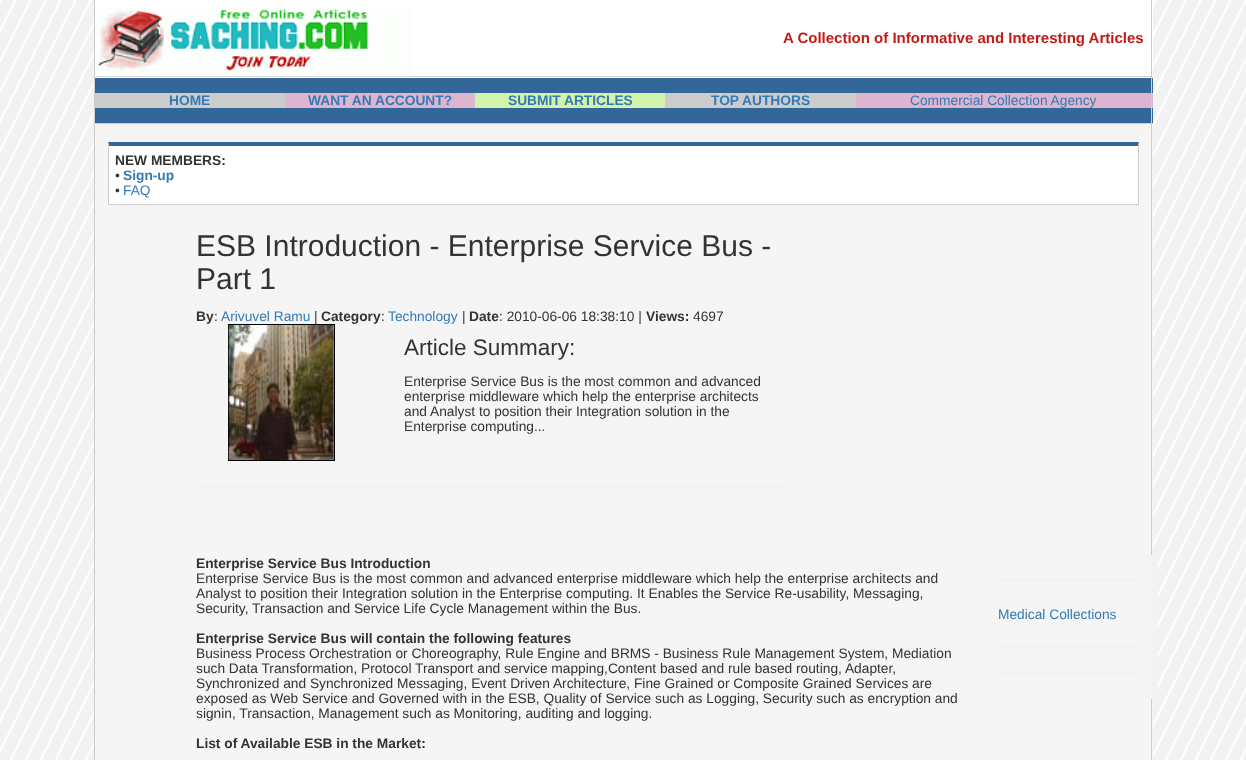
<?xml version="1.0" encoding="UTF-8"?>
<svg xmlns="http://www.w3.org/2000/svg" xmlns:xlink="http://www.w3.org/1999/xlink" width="1246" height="760">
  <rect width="100%" height="100%" fill="#ffffff" />
  <image x="0" y="0" width="1246" height="760" xlink:href="image1.png" />
  <rect x="95" width="1058" height="78" fill="#ffffff" />
  <rect x="1151" width="1" height="78" fill="#cccccc" />
  <rect x="94" y="76" width="1059" height="1" fill="#cccccc" />
  <rect x="94" width="1" height="78" fill="#cccccc" />
  <image x="95" y="8" width="316" height="69" xlink:href="image2.png" />
  <rect x="95" y="78" width="1058" height="15" fill="#336699" />
  <rect x="856" y="93" width="297" height="15" fill="#deb5cf" />
  <rect x="95" y="108" width="1058" height="15" fill="#336699" />
  <rect x="1151" y="78" width="1" height="46" fill="#cccccc" />
  <rect x="94" y="123" width="1059" height="1" fill="#cccccc" />
  <rect x="94" y="78" width="1" height="682" fill="#cccccc" />
  <rect x="95" y="93" width="190" height="15" fill="#cccccc" />
  <rect x="285" y="93" width="190" height="15" fill="#deb5cf" />
  <rect x="475" y="93" width="190" height="15" fill="#d1f3ab" />
  <rect x="665" y="93" width="191" height="15" fill="#cccccc" />
  <rect x="95" y="124" width="1058" height="636" fill="#f5f5f5" />
  <rect x="1151" y="124" width="1" height="636" fill="#cccccc" />
  <rect x="109" y="146" width="1029" height="58" fill="#ffffff" />
  <path d="M 108 142 h 1031 l -1 4 h -1029 z" fill="#336699" />
  <path d="M 1139 142 v 63 l -1 -1 v -58 z" fill="#cccccc" />
  <rect x="108" y="204" width="1031" height="1" fill="#cccccc" />
  <path d="M 108 205 v -63 l 1 4 v 58 z" fill="#cccccc" />
  <rect x="228.5" y="324.5" width="106" height="136" fill="none" stroke="#000000" />
  <image x="228" y="325" width="106" height="135" xlink:href="image3.png" />
  <rect x="196" y="486" width="587" height="1" fill="#eeeeee" />
  <rect x="1151" y="555" width="7" height="144" fill="#f3f3f3" />
  <rect x="999" y="580" width="140" height="1" fill="#eeeeee" />
  <rect x="999" y="646" width="140" height="1" fill="#eeeeee" />
  <rect x="999" y="673" width="140" height="1" fill="#eeeeee" />
  <text x="783" y="43" style="font-family: Liberation Sans; font-size: 15px; font-weight: bold; fill: #c41a14">A Collection of Informative and Interesting Articles</text>
  <text x="169" y="105" style="font-family: Liberation Sans; font-size: 13.75px; font-weight: bold; fill: #337ab7">HOME</text>
  <text x="308" y="105" style="font-family: Liberation Sans; font-size: 13.75px; font-weight: bold; fill: #337ab7">WANT AN ACCOUNT?</text>
  <text x="508" y="105" style="font-family: Liberation Sans; font-size: 13.75px; font-weight: bold; fill: #337ab7">SUBMIT ARTICLES</text>
  <text x="711" y="105" style="font-family: Liberation Sans; font-size: 13.75px; font-weight: bold; fill: #337ab7">TOP AUTHORS</text>
  <text x="910" y="105" style="font-family: Liberation Sans; font-size: 13.75px; fill: #337ab7">Commercial Collection Agency</text>
  <text x="115" y="165" style="font-family: Liberation Sans; font-size: 13.75px; font-weight: bold; fill: #333333">NEW MEMBERS:</text>
  <text x="115" y="180" style="font-family: Liberation Sans; font-size: 13.75px; fill: #333333">•</text>
  <text x="123" y="180" style="font-family: Liberation Sans; font-size: 13.75px; font-weight: bold; fill: #337ab7">Sign-up</text>
  <text x="115" y="195" style="font-family: Liberation Sans; font-size: 13.75px; fill: #333333">•</text>
  <text x="123" y="195" style="font-family: Liberation Sans; font-size: 13.75px; fill: #337ab7">FAQ</text>
  <text x="196" y="256" style="font-family: Liberation Sans; font-size: 30px; fill: #333333">ESB Introduction - Enterprise Service Bus -</text>
  <text x="196" y="289" style="font-family: Liberation Sans; font-size: 30px; fill: #333333">Part 1</text>
  <text x="196" y="321" style="font-family: Liberation Sans; font-size: 13.75px; font-weight: bold; fill: #333333">By</text>
  <text x="214" y="321" style="font-family: Liberation Sans; font-size: 13.75px; fill: #333333">:</text>
  <text x="221" y="321" style="font-family: Liberation Sans; font-size: 13.75px; fill: #337ab7">Arivuvel Ramu</text>
  <text x="314" y="321" style="font-family: Liberation Sans; font-size: 13.75px; fill: #333333">|</text>
  <text x="321" y="321" style="font-family: Liberation Sans; font-size: 13.75px; font-weight: bold; fill: #333333">Category</text>
  <text x="381" y="321" style="font-family: Liberation Sans; font-size: 13.75px; fill: #333333">:</text>
  <text x="388" y="321" style="font-family: Liberation Sans; font-size: 13.75px; fill: #337ab7">Technology</text>
  <text x="462" y="321" style="font-family: Liberation Sans; font-size: 13.75px; fill: #333333">|</text>
  <text x="469" y="321" style="font-family: Liberation Sans; font-size: 13.75px; font-weight: bold; fill: #333333">Date</text>
  <text x="499" y="321" style="font-family: Liberation Sans; font-size: 13.75px; fill: #333333">: 2010-06-06 18:38:10 |</text>
  <text x="646" y="321" style="font-family: Liberation Sans; font-size: 13.75px; font-weight: bold; fill: #333333">Views:</text>
  <text x="693" y="321" style="font-family: Liberation Sans; font-size: 13.75px; fill: #333333">4697</text>
  <text x="404" y="355" style="font-family: Liberation Sans; font-size: 22.5px; fill: #333333">Article Summary:</text>
  <text x="404" y="386" style="font-family: Liberation Sans; font-size: 13.75px; fill: #333333">Enterprise Service Bus is the most common and advanced</text>
  <text x="404" y="401" style="font-family: Liberation Sans; font-size: 13.75px; fill: #333333">enterprise middleware which help the enterprise architects</text>
  <text x="404" y="416" style="font-family: Liberation Sans; font-size: 13.75px; fill: #333333">and Analyst to position their Integration solution in the</text>
  <text x="404" y="431" style="font-family: Liberation Sans; font-size: 13.75px; fill: #333333">Enterprise computing...</text>
  <text x="196" y="568" style="font-family: Liberation Sans; font-size: 13.75px; font-weight: bold; fill: #333333">Enterprise Service Bus Introduction</text>
  <text x="196" y="583" style="font-family: Liberation Sans; font-size: 13.75px; fill: #333333">Enterprise Service Bus is the most common and advanced enterprise middleware which help the enterprise architects and</text>
  <text x="196" y="598" style="font-family: Liberation Sans; font-size: 13.75px; fill: #333333">Analyst to position their Integration solution in the Enterprise computing. It Enables the Service Re-usability, Messaging,</text>
  <text x="196" y="613" style="font-family: Liberation Sans; font-size: 13.75px; fill: #333333">Security, Transaction and Service Life Cycle Management within the Bus.</text>
  <text x="196" y="643" style="font-family: Liberation Sans; font-size: 13.75px; font-weight: bold; fill: #333333">Enterprise Service Bus will contain the following features</text>
  <text x="196" y="658" style="font-family: Liberation Sans; font-size: 13.75px; fill: #333333">Business Process Orchestration or Choreography, Rule Engine and BRMS - Business Rule Management System, Mediation</text>
  <text x="196" y="673" style="font-family: Liberation Sans; font-size: 13.75px; fill: #333333">such Data Transformation, Protocol Transport and service mapping,Content based and rule based routing, Adapter,</text>
  <text x="196" y="688" style="font-family: Liberation Sans; font-size: 13.75px; fill: #333333">Synchronized and Synchronized Messaging, Event Driven Architecture, Fine Grained or Composite Grained Services are</text>
  <text x="196" y="703" style="font-family: Liberation Sans; font-size: 13.75px; fill: #333333">exposed as Web Service and Governed with in the ESB, Quality of Service such as Logging, Security such as encryption and</text>
  <text x="196" y="718" style="font-family: Liberation Sans; font-size: 13.75px; fill: #333333">signin, Transaction, Management such as Monitoring, auditing and logging.</text>
  <text x="196" y="748" style="font-family: Liberation Sans; font-size: 13.75px; font-weight: bold; fill: #333333">List of Available ESB in the Market:</text>
  <text x="998" y="619" style="font-family: Liberation Sans; font-size: 13.75px; fill: #337ab7">Medical Collections</text>
</svg>
